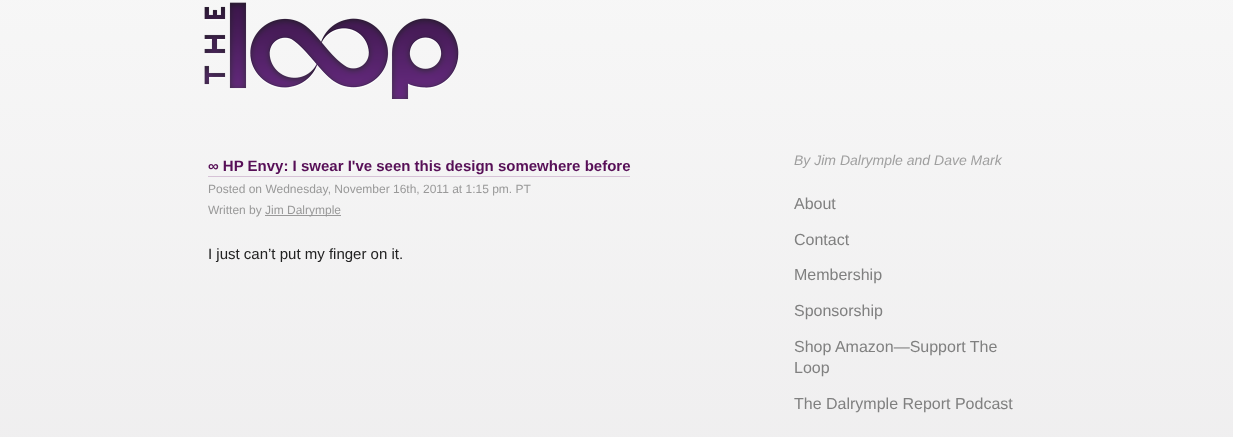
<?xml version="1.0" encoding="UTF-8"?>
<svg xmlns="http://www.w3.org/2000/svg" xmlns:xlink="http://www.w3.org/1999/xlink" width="1233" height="437">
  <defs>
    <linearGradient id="g1" gradientUnits="userSpaceOnUse" x1="617" y1="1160" x2="617" y2="-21"><stop offset="0" stop-color="#e4e2e4" /><stop offset="1" stop-color="#f7f7f7" /></linearGradient>
  </defs>
  <rect width="100%" height="100%" fill="#ffffff" />
  <rect width="1233" height="437" fill="url(#g1)" />
  <image x="204" y="2" width="255" height="97" xlink:href="image1.png" />
  <rect x="208" y="176" width="422" height="1" fill="#d6c2d6" />
  <rect x="265" y="215" width="76" height="1" fill="#999999" />
  <text x="208" y="171" style="font-family: Liberation Sans; font-size: 15px; font-weight: bold; fill: #570f57">∞ HP Envy: I swear I've seen this design somewhere before</text>
  <text x="208" y="193" style="font-family: Liberation Sans; font-size: 12px; fill: #999999">Posted on Wednesday, November 16th, 2011 at 1:15 pm. PT</text>
  <text x="208" y="214" style="font-family: Liberation Sans; font-size: 12px; fill: #999999">Written by</text>
  <text x="265" y="214" style="font-family: Liberation Sans; font-size: 12px; fill: #999999">Jim Dalrymple</text>
  <text x="208" y="259" style="font-family: Liberation Sans; font-size: 15px; fill: #222222">I just can’t put my finger on it.</text>
  <text x="794" y="165" style="font-family: Liberation Sans; font-size: 14px; font-style: italic; fill: #9f9f9f">By Jim Dalrymple and Dave Mark</text>
  <text x="794" y="209" style="font-family: Liberation Sans; font-size: 16px; fill: #808080">About</text>
  <text x="794" y="245" style="font-family: Liberation Sans; font-size: 16px; fill: #808080">Contact</text>
  <text x="794" y="280" style="font-family: Liberation Sans; font-size: 16px; fill: #808080">Membership</text>
  <text x="794" y="316" style="font-family: Liberation Sans; font-size: 16px; fill: #808080">Sponsorship</text>
  <text x="794" y="352" style="font-family: Liberation Sans; font-size: 16px; fill: #808080">Shop Amazon—Support The</text>
  <text x="794" y="373" style="font-family: Liberation Sans; font-size: 16px; fill: #808080">Loop</text>
  <text x="794" y="409" style="font-family: Liberation Sans; font-size: 16px; fill: #808080">The Dalrymple Report Podcast</text>
</svg>
